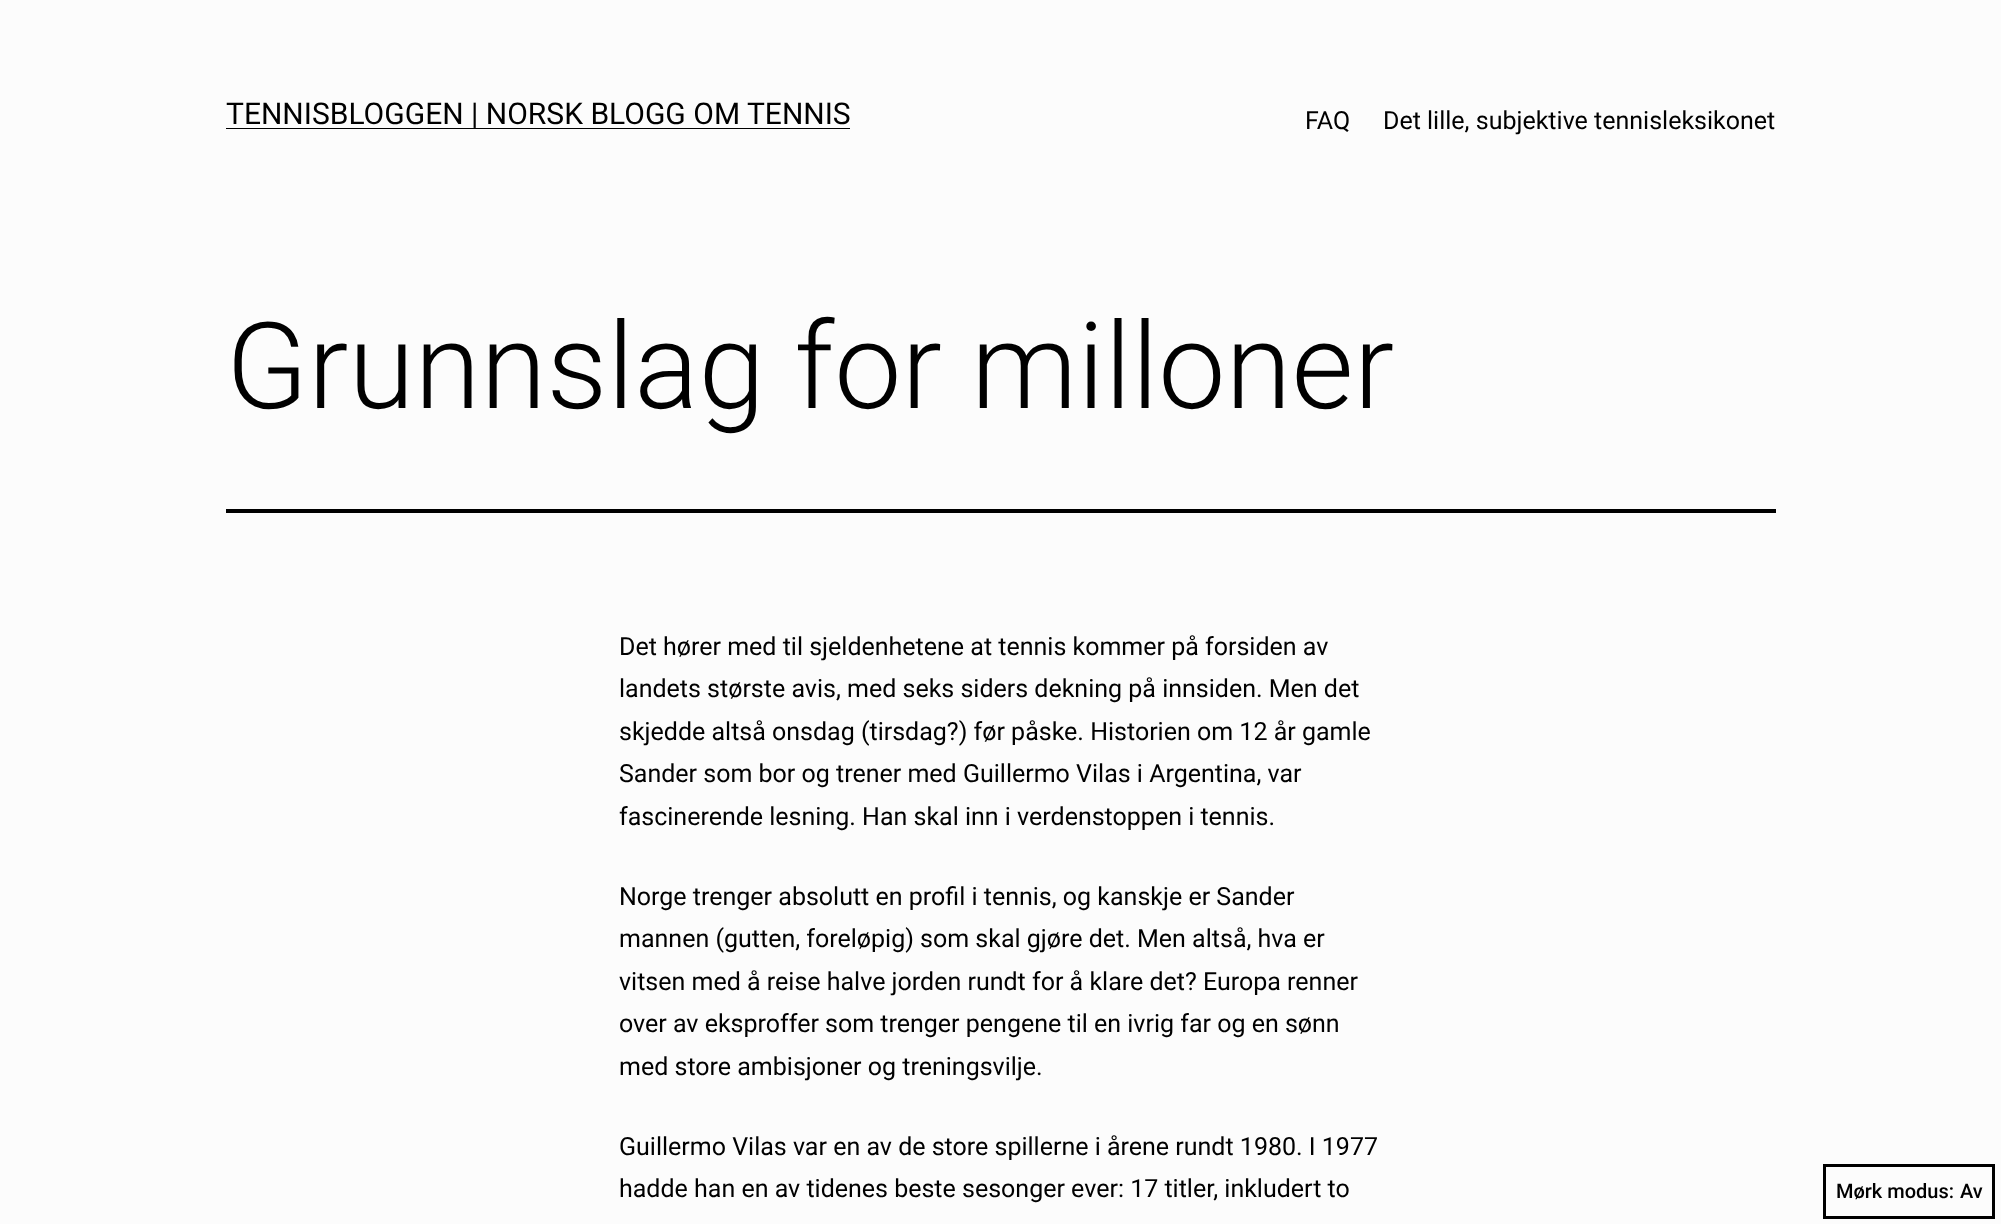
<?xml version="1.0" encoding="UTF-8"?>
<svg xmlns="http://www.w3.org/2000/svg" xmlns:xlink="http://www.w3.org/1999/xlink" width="2001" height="1224">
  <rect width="100%" height="100%" fill="#fcfcfc" />
  <rect x="226" y="128" width="624" height="1" fill="#000000" />
  <rect x="226" y="509" width="1550" height="4" fill="#000000" />
  <rect x="1824.5" y="1165.5" width="169" height="52" fill="none" stroke="#000000" stroke-width="3" />
  <text x="226" y="124" style="font-family: Roboto; font-size: 30px; fill: #000000">TENNISBLOGGEN | NORSK BLOGG OM TENNIS</text>
  <text x="1305" y="129" style="font-family: Roboto; font-size: 25px; fill: #000000">FAQ</text>
  <text x="1383" y="129" style="font-family: Roboto; font-size: 25px; fill: #000000">Det lille, subjektive tennisleksikonet</text>
  <text x="226" y="408" style="font-family: Roboto; font-size: 120px; font-weight: 300; fill: #000000">Grunnslag for milloner</text>
  <text x="619" y="655" style="font-family: Roboto; font-size: 25px; fill: #000000">Det hører med til sjeldenhetene at tennis kommer på forsiden av</text>
  <text x="619" y="697" style="font-family: Roboto; font-size: 25px; fill: #000000">landets største avis, med seks siders dekning på innsiden. Men det</text>
  <text x="619" y="740" style="font-family: Roboto; font-size: 25px; fill: #000000">skjedde altså onsdag (tirsdag?) før påske. Historien om 12 år gamle</text>
  <text x="619" y="782" style="font-family: Roboto; font-size: 25px; fill: #000000">Sander som bor og trener med Guillermo Vilas i Argentina, var</text>
  <text x="619" y="825" style="font-family: Roboto; font-size: 25px; fill: #000000">fascinerende lesning. Han skal inn i verdenstoppen i tennis.</text>
  <text x="619" y="905" style="font-family: Roboto; font-size: 25px; fill: #000000">Norge trenger absolutt en profil i tennis, og kanskje er Sander</text>
  <text x="619" y="947" style="font-family: Roboto; font-size: 25px; fill: #000000">mannen (gutten, foreløpig) som skal gjøre det. Men altså, hva er</text>
  <text x="619" y="990" style="font-family: Roboto; font-size: 25px; fill: #000000">vitsen med å reise halve jorden rundt for å klare det? Europa renner</text>
  <text x="619" y="1032" style="font-family: Roboto; font-size: 25px; fill: #000000">over av eksproffer som trenger pengene til en ivrig far og en sønn</text>
  <text x="619" y="1075" style="font-family: Roboto; font-size: 25px; fill: #000000">med store ambisjoner og treningsvilje.</text>
  <text x="619" y="1155" style="font-family: Roboto; font-size: 25px; fill: #000000">Guillermo Vilas var en av de store spillerne i årene rundt 1980. I 1977</text>
  <text x="619" y="1197" style="font-family: Roboto; font-size: 25px; fill: #000000">hadde han en av tidenes beste sesonger ever: 17 titler, inkludert to</text>
  <text x="1836" y="1198" style="font-family: Roboto; font-size: 20px; font-weight: 500; fill: #000000">Mørk modus:</text>
  <text x="1960" y="1198" style="font-family: Roboto; font-size: 20px; font-weight: 500; fill: #000000">Av</text>
</svg>
